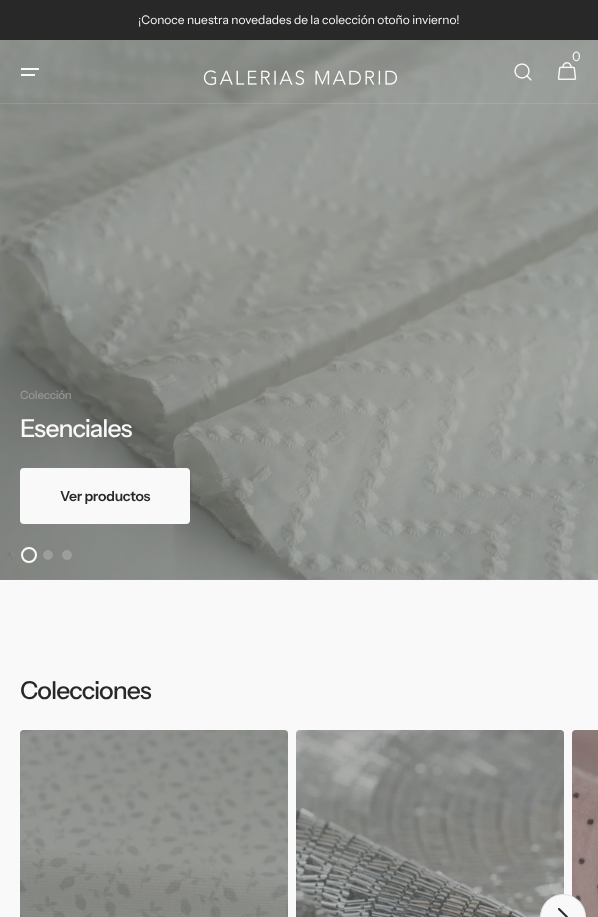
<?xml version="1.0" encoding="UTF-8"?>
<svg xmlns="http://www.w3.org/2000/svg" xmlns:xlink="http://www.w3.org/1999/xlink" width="598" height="917">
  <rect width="100%" height="100%" fill="#f9f9f9" />
  <rect width="598" height="40" fill="#282828" />
  <image x="0" y="40" width="598" height="540" xlink:href="image4.png" />
  <image x="557" y="62" width="20" height="18" xlink:href="image1.png" />
  <image x="514" y="63" width="18" height="18" xlink:href="image2.png" />
  <rect x="21" y="68" width="18" height="2" fill="#f9f9f9" />
  <rect x="21" y="74" width="14" height="2" fill="#f9f9f9" />
  <image x="203" y="70" width="194" height="15" xlink:href="image3.png" />
  <rect y="103" width="598" height="1" fill="#f9f9f9" fill-opacity="0.12" />
  <rect x="20" y="468" width="170" height="56" rx="4" fill="#f9f9f9" />
  <circle cx="29" cy="555" r="7" fill="none" stroke="#f9f9f9" stroke-opacity="0.2" stroke-width="2" />
  <circle cx="29" cy="555" r="7" fill="none" stroke="#f9f9f9" stroke-width="2" />
  <circle cx="48" cy="555" r="4.5" fill="#9a9d9a" stroke="#f9f9f9" stroke-opacity="0.2" stroke-width="0.6" />
  <circle cx="67" cy="555" r="4.5" fill="#9c9e9b" stroke="#f9f9f9" stroke-opacity="0.2" stroke-width="0.6" />
  <image x="20" y="730" width="268" height="187" xlink:href="image5.png" />
  <rect x="20" y="730" width="268" height="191" rx="4" fill="#696969" fill-opacity="0.5" />
  <image x="296" y="730" width="268" height="187" xlink:href="image6.png" />
  <rect x="296" y="730" width="268" height="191" rx="4" fill="#696969" fill-opacity="0.5" />
  <image x="572" y="730" width="26" height="187" xlink:href="image7.png" />
  <path d="M 576 730 h 22 v 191 h -22 c -2 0 -4 -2 -4 -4 v -183 c 0 -2 2 -4 4 -4 z" fill="#696969" fill-opacity="0.5" />
  <circle cx="563" cy="917" r="22.5" fill="#f9f9f9" stroke="#e5e5e5" />
  <path d="M 559 909 l 8 8 l -8 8" fill="none" stroke="#282828" stroke-width="2" stroke-linecap="round" stroke-linejoin="round" />
  <text x="138" y="24" style="font-family: Instrument Sans; font-size: 12px; fill: #f9f9f9">¡Conoce nuestra novedades de la colección otoño invierno!</text>
  <text x="572" y="61" style="font-family: Instrument Sans; font-size: 13px; fill: #f9f9f9">0</text>
  <text x="20" y="399" style="font-family: Instrument Sans; font-size: 11.5px; font-weight: 500; letter-spacing: -0.25px; fill: #969796">Colección</text>
  <text x="20" y="437" style="font-family: Instrument Sans; font-size: 24.75px; font-weight: 500; letter-spacing: -1px; fill: #f9f9f9">Esenciales</text>
  <text x="60" y="501" style="font-family: Instrument Sans; font-size: 14px; font-weight: 600; letter-spacing: -0.25px; fill: #282828">Ver productos</text>
  <text x="20" y="699" style="font-family: Instrument Sans; font-size: 24.75px; font-weight: 500; letter-spacing: -1px; fill: #282828">Colecciones</text>
</svg>
